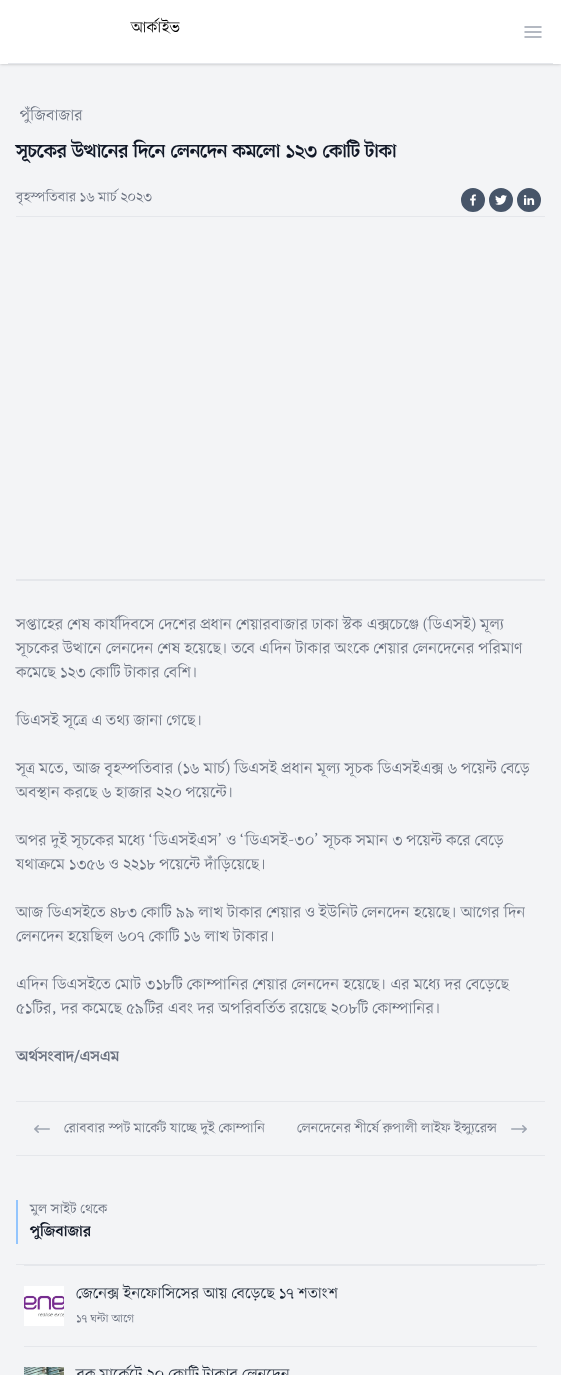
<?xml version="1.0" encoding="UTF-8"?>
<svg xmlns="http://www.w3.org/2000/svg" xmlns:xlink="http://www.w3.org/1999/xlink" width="561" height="1375">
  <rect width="100%" height="100%" fill="#f3f4f6" />
  <rect x="1" y="2" width="559" height="62" fill="#000000" fill-opacity="0.1" filter="blur(1px)" />
  <rect y="1" width="561" height="64" fill="#000000" fill-opacity="0.1" filter="blur(1.5px)" />
  <rect width="561" height="64" fill="#ffffff" />
  <rect x="8" y="63" width="545" height="1" fill="#e5e7eb" />
  <path d="M 525 27 h 16 m -16 5 h 16 m -16 5 h 16" fill="none" stroke="#9ca3af" stroke-width="1.5" stroke-linecap="round" stroke-linejoin="round" />
  <circle cx="473" cy="200" r="11" fill="#475569" stroke="#475569" stroke-width="2" />
  <image x="470" y="194" width="6" height="12" xlink:href="image1.png" />
  <circle cx="501" cy="200" r="11" fill="#475569" stroke="#475569" stroke-width="2" />
  <image x="495" y="195" width="12" height="10" xlink:href="image2.png" />
  <circle cx="529" cy="200" r="11" fill="#475569" stroke="#475569" stroke-width="2" />
  <image x="523" y="195" width="12" height="10" xlink:href="image3.png" />
  <rect x="16" y="216" width="529" height="1" fill="#e5e7eb" />
  <rect x="16" y="579" width="529" height="2" fill="#e5e7eb" />
  <rect x="16" y="1101" width="529" height="1" fill="#e5e7eb" />
  <image x="34" y="1125" width="16" height="8" xlink:href="image4.png" />
  <image x="511" y="1125" width="16" height="8" xlink:href="image5.png" />
  <rect x="16" y="1155" width="529" height="1" fill="#e5e7eb" />
  <rect x="16" y="1264" width="529" height="1" fill="#e5e7eb" />
  <rect x="16" y="1200" width="2" height="44" fill="#93c5fd" />
  <rect x="24" y="1265" width="513" height="1" fill="#e5e7eb" />
  <image x="24" y="1286" width="40" height="40" xlink:href="image6.png" />
  <rect x="24" y="1346" width="513" height="1" fill="#e5e7eb" />
  <image x="24" y="1367" width="40" height="8" xlink:href="image7.png" />
  <text x="131" y="32" style="font-family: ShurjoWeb; font-size: 16px; fill: #000000">আর্কাইভ</text>
  <text x="20" y="120" style="font-family: ShurjoWeb; font-size: 16px; fill: #6b7280">পুঁজিবাজার</text>
  <text x="16" y="157" word-spacing="1" style="font-family: ShurjoWeb; font-size: 20px; font-weight: bold; letter-spacing: -0.5px; fill: #111827">সূচকের উত্থানের দিনে লেনদেন কমলো ১২৩ কোটি টাকা</text>
  <text x="16" y="201" style="font-family: ShurjoWeb; font-size: 14px; fill: #6b7280">বৃহস্পতিবার ১৬ মার্চ ২০২৩</text>
  <text x="16" y="629" style="font-family: ShurjoWeb; font-size: 16px; fill: #6b7280">সপ্তাহের শেষ কার্যদিবসে দেশের প্রধান শেয়ারবাজার ঢাকা স্টক এক্সচেঞ্জে (ডিএসই) মূল্য</text>
  <text x="16" y="653" style="font-family: ShurjoWeb; font-size: 16px; fill: #6b7280">সূচকের উত্থানে লেনদেন শেষ হয়েছে। তবে এদিন টাকার অংকে শেয়ার লেনদেনের পরিমাণ</text>
  <text x="16" y="677" style="font-family: ShurjoWeb; font-size: 16px; fill: #6b7280">কমেছে ১২৩ কোটি টাকার বেশি।</text>
  <text x="16" y="725" style="font-family: ShurjoWeb; font-size: 16px; fill: #6b7280">ডিএসই সূত্রে এ তথ্য জানা গেছে।</text>
  <text x="16" y="773" style="font-family: ShurjoWeb; font-size: 16px; fill: #6b7280">সূত্র মতে, আজ বৃহস্পতিবার (১৬ মার্চ) ডিএসই প্রধান মূল্য সূচক ডিএসইএক্স ৬ পয়েন্ট বেড়ে</text>
  <text x="16" y="797" style="font-family: ShurjoWeb; font-size: 16px; fill: #6b7280">অবস্থান করছে ৬ হাজার ২২০ পয়েন্টে।</text>
  <text x="16" y="845" style="font-family: ShurjoWeb; font-size: 16px; fill: #6b7280">অপর দুই সূচকের মধ্যে ‘ডিএসইএস’ ও ‘ডিএসই-৩০’ সূচক সমান ৩ পয়েন্ট করে বেড়ে</text>
  <text x="16" y="869" style="font-family: ShurjoWeb; font-size: 16px; fill: #6b7280">যথাক্রমে ১৩৫৬ ও ২২১৮ পয়েন্টে দাঁড়িয়েছে।</text>
  <text x="16" y="917" style="font-family: ShurjoWeb; font-size: 16px; fill: #6b7280">আজ ডিএসইতে ৪৮৩ কোটি ৯৯ লাখ টাকার শেয়ার ও ইউনিট লেনদেন হয়েছে। আগের দিন</text>
  <text x="16" y="941" style="font-family: ShurjoWeb; font-size: 16px; fill: #6b7280">লেনদেন হয়েছিল ৬০৭ কোটি ১৬ লাখ টাকার।</text>
  <text x="16" y="989" style="font-family: ShurjoWeb; font-size: 16px; fill: #6b7280">এদিন ডিএসইতে মোট ৩১৮টি কোম্পানির শেয়ার লেনদেন হয়েছে। এর মধ্যে দর বেড়েছে</text>
  <text x="16" y="1013" style="font-family: ShurjoWeb; font-size: 16px; fill: #6b7280">৫১টির, দর কমেছে ৫৯টির এবং দর অপরিবর্তিত রয়েছে ২০৮টি কোম্পানির।</text>
  <text x="16" y="1061" style="font-family: ShurjoWeb; font-size: 16px; font-weight: bold; fill: #6b7280">অর্থসংবাদ/এসএম</text>
  <text x="64" y="1132" style="font-family: ShurjoWeb; font-size: 14px; fill: #6b7280">রোববার স্পট মার্কেট যাচ্ছে দুই কোম্পানি</text>
  <text x="297" y="1132" style="font-family: ShurjoWeb; font-size: 14px; fill: #6b7280">লেনদেনের শীর্ষে রুপালী লাইফ ইন্স্যুরেন্স</text>
  <text x="30" y="1213" style="font-family: ShurjoWeb; font-size: 14px; fill: #6b7280">মুল সাইট থেকে</text>
  <text x="30" y="1236" style="font-family: ShurjoWeb; font-size: 16px; font-weight: bold; fill: #111827">পুজিবাজার</text>
  <text x="76" y="1298" style="font-family: ShurjoWeb; font-size: 16px; fill: #1f2937">জেনেক্স ইনফোসিসের আয় বেড়েছে ১৭ শতাংশ</text>
  <text x="76" y="1322" style="font-family: ShurjoWeb; font-size: 12px; fill: #6b7280">১৭ ঘন্টা আগে</text>
  <text x="76" y="1379" style="font-family: ShurjoWeb; font-size: 16px; fill: #1f2937">ব্লক মার্কেটে ২০ কোটি টাকার লেনদেন</text>
</svg>
